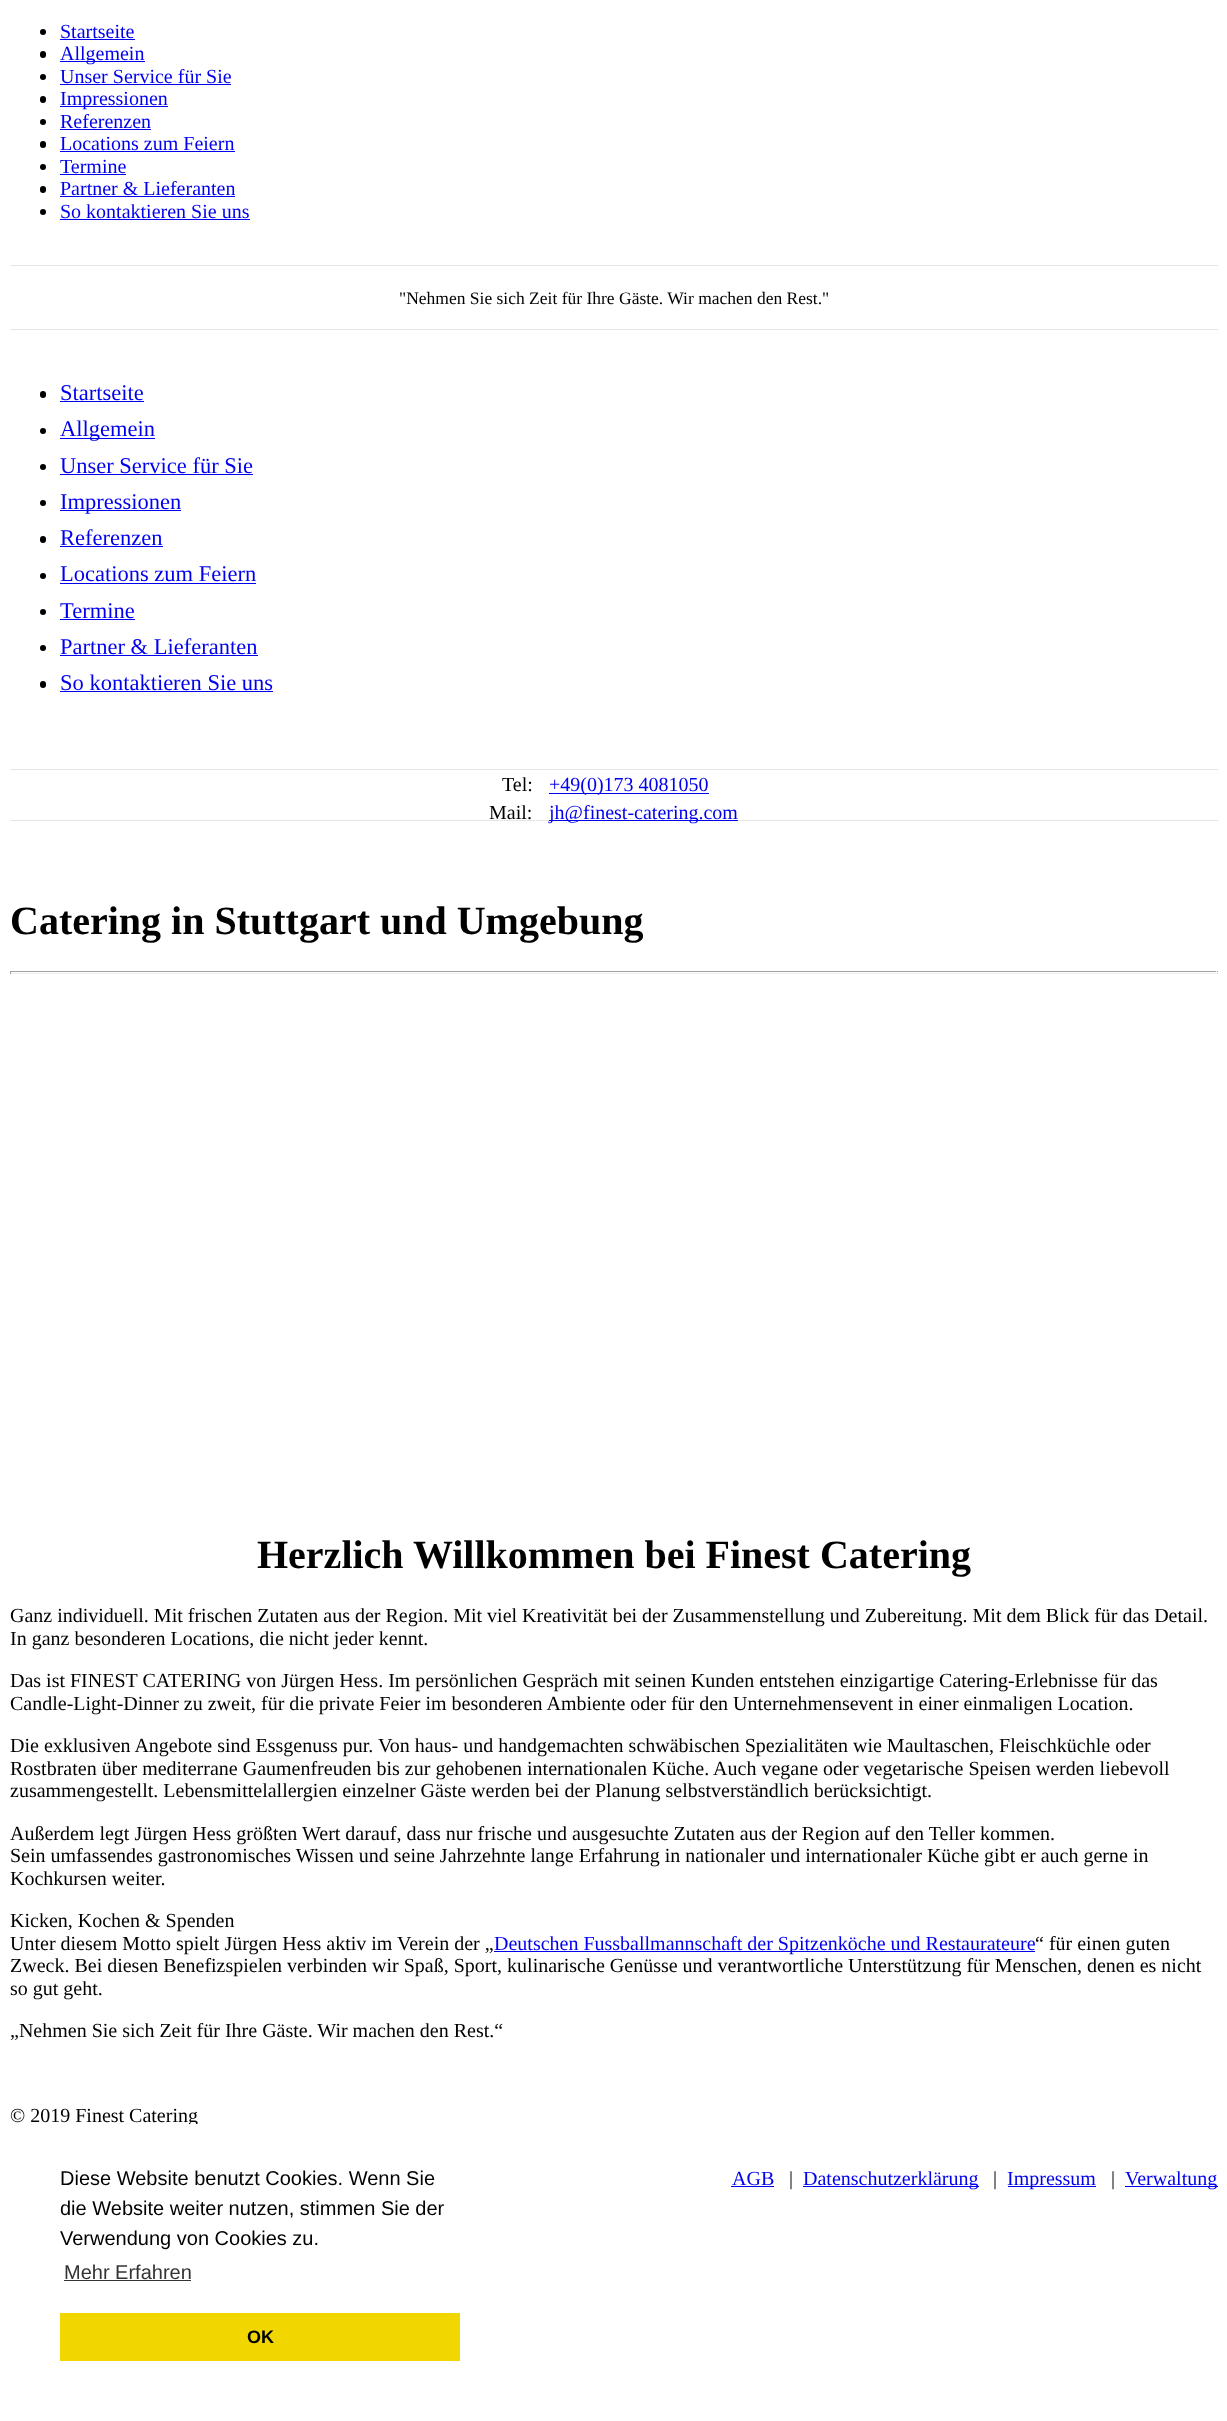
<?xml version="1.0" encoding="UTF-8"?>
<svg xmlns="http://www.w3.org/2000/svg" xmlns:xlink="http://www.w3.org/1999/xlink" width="1227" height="2421">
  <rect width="100%" height="100%" fill="#ffffff" />
  <circle cx="43" cy="32" r="3" fill="#000000" />
  <rect x="60" y="39" width="75" height="1" fill="#0000ee" />
  <rect x="40" y="51" width="6" height="7" rx="3" fill="#000000" />
  <rect x="60" y="61" width="85" height="1" fill="#0000ee" />
  <circle cx="43" cy="77" r="3" fill="#000000" />
  <rect x="60" y="84" width="171" height="1" fill="#0000ee" />
  <rect x="40" y="96" width="6" height="7" rx="3" fill="#000000" />
  <rect x="60" y="106" width="108" height="1" fill="#0000ee" />
  <circle cx="43" cy="122" r="3" fill="#000000" />
  <rect x="60" y="129" width="91" height="1" fill="#0000ee" />
  <rect x="40" y="141" width="6" height="7" rx="3" fill="#000000" />
  <rect x="60" y="151" width="175" height="1" fill="#0000ee" />
  <circle cx="43" cy="167" r="3" fill="#000000" />
  <rect x="60" y="174" width="66" height="1" fill="#0000ee" />
  <rect x="40" y="186" width="6" height="7" rx="3" fill="#000000" />
  <rect x="60" y="196" width="175" height="1" fill="#0000ee" />
  <circle cx="43" cy="212" r="3" fill="#000000" />
  <rect x="60" y="219" width="190" height="1" fill="#0000ee" />
  <rect x="10" y="265" width="1208" height="1" fill="#e6e6e6" />
  <rect x="10" y="329" width="1208" height="1" fill="#e6e6e6" />
  <rect x="40" y="391" width="6" height="7" rx="3" fill="#000000" />
  <rect x="60" y="401" width="84" height="1" fill="#0000ee" />
  <circle cx="43" cy="431" r="3" fill="#000000" />
  <rect x="60" y="438" width="95" height="1" fill="#0000ee" />
  <circle cx="43" cy="467" r="3" fill="#000000" />
  <rect x="60" y="474" width="193" height="1" fill="#0000ee" />
  <circle cx="43" cy="503" r="3" fill="#000000" />
  <rect x="60" y="510" width="121" height="1" fill="#0000ee" />
  <rect x="40" y="536" width="6" height="7" rx="3" fill="#000000" />
  <rect x="60" y="546" width="103" height="1" fill="#0000ee" />
  <circle cx="43" cy="576" r="3" fill="#000000" />
  <rect x="60" y="583" width="196" height="1" fill="#0000ee" />
  <circle cx="43" cy="612" r="3" fill="#000000" />
  <rect x="60" y="619" width="75" height="1" fill="#0000ee" />
  <circle cx="43" cy="648" r="3" fill="#000000" />
  <rect x="60" y="655" width="198" height="1" fill="#0000ee" />
  <rect x="40" y="681" width="6" height="7" rx="3" fill="#000000" />
  <rect x="60" y="691" width="213" height="1" fill="#0000ee" />
  <rect x="10" y="769" width="1208" height="1" fill="#e6e6e6" />
  <rect x="549" y="793" width="160" height="1" fill="#0000ee" />
  <rect x="10" y="820" width="1208" height="1" fill="#e6e6e6" />
  <rect x="549" y="820" width="189" height="1" fill="#0000ee" />
  <rect x="10" y="971" width="1208" height="1" fill="#9f9f9f" />
  <rect x="1216" y="971" width="1" height="3" fill="#eeeeee" />
  <rect x="10" y="973" width="1208" height="1" fill="#eeeeee" />
  <rect x="10" y="971" width="1" height="3" fill="#9f9f9f" />
  <rect x="494" y="1951" width="541" height="1" fill="#0000ee" />
  <rect x="731" y="2186" width="43" height="1" fill="#0000ee" />
  <rect x="803" y="2186" width="176" height="1" fill="#0000ee" />
  <rect x="1008" y="2186" width="88" height="1" fill="#0000ee" />
  <rect x="1125" y="2186" width="93" height="1" fill="#0000ee" />
  <rect x="64" y="2280" width="127" height="1" fill="#333333" />
  <rect x="60" y="2313" width="400" height="48" fill="#f1d600" />
  <text x="60" y="38" style="font-family: Liberation Serif; font-size: 20px; fill: #0000ee">Startseite</text>
  <text x="60" y="60" style="font-family: Liberation Serif; font-size: 20px; fill: #0000ee">Allgemein</text>
  <text x="60" y="83" style="font-family: Liberation Serif; font-size: 20px; fill: #0000ee">Unser Service für Sie</text>
  <text x="60" y="105" style="font-family: Liberation Serif; font-size: 20px; fill: #0000ee">Impressionen</text>
  <text x="60" y="128" style="font-family: Liberation Serif; font-size: 20px; fill: #0000ee">Referenzen</text>
  <text x="60" y="150" style="font-family: Liberation Serif; font-size: 20px; fill: #0000ee">Locations zum Feiern</text>
  <text x="60" y="173" style="font-family: Liberation Serif; font-size: 20px; fill: #0000ee">Termine</text>
  <text x="60" y="195" style="font-family: Liberation Serif; font-size: 20px; fill: #0000ee">Partner &amp; Lieferanten</text>
  <text x="60" y="218" style="font-family: Liberation Serif; font-size: 20px; fill: #0000ee">So kontaktieren Sie uns</text>
  <text x="399" y="304" style="font-family: Liberation Serif; font-size: 17.5px; fill: #000000">"Nehmen Sie sich Zeit für Ihre Gäste. Wir machen den Rest."</text>
  <text x="60" y="400" style="font-family: Liberation Serif; font-size: 22.5px; fill: #0000ee">Startseite</text>
  <text x="60" y="436" style="font-family: Liberation Serif; font-size: 22.5px; fill: #0000ee">Allgemein</text>
  <text x="60" y="473" style="font-family: Liberation Serif; font-size: 22.5px; fill: #0000ee">Unser Service für Sie</text>
  <text x="60" y="509" style="font-family: Liberation Serif; font-size: 22.5px; fill: #0000ee">Impressionen</text>
  <text x="60" y="545" style="font-family: Liberation Serif; font-size: 22.5px; fill: #0000ee">Referenzen</text>
  <text x="60" y="581" style="font-family: Liberation Serif; font-size: 22.5px; fill: #0000ee">Locations zum Feiern</text>
  <text x="60" y="618" style="font-family: Liberation Serif; font-size: 22.5px; fill: #0000ee">Termine</text>
  <text x="60" y="654" style="font-family: Liberation Serif; font-size: 22.5px; fill: #0000ee">Partner &amp; Lieferanten</text>
  <text x="60" y="690" style="font-family: Liberation Serif; font-size: 22.5px; fill: #0000ee">So kontaktieren Sie uns</text>
  <text x="502" y="791" style="font-family: Liberation Serif; font-size: 20px; fill: #000000">Tel:</text>
  <text x="549" y="791" style="font-family: Liberation Serif; font-size: 20px; fill: #0000ee">+49(0)173 4081050</text>
  <text x="489" y="819" style="font-family: Liberation Serif; font-size: 20px; fill: #000000">Mail:</text>
  <text x="549" y="819" style="font-family: Liberation Serif; font-size: 20px; fill: #0000ee">jh@finest-catering.com</text>
  <text x="10" y="934" style="font-family: Liberation Serif; font-size: 40px; font-weight: bold; fill: #000000">Catering in Stuttgart und Umgebung</text>
  <text x="257" y="1568" style="font-family: Liberation Serif; font-size: 40px; font-weight: bold; fill: #000000">Herzlich Willkommen bei Finest Catering</text>
  <text x="10" y="1622" style="font-family: Liberation Serif; font-size: 20px; fill: #000000">Ganz individuell. Mit frischen Zutaten aus der Region. Mit viel Kreativität bei der Zusammenstellung und Zubereitung. Mit dem Blick für das Detail.</text>
  <text x="10" y="1645" style="font-family: Liberation Serif; font-size: 20px; fill: #000000">In ganz besonderen Locations, die nicht jeder kennt.</text>
  <text x="10" y="1687" style="font-family: Liberation Serif; font-size: 20px; fill: #000000">Das ist FINEST CATERING von Jürgen Hess. Im persönlichen Gespräch mit seinen Kunden entstehen einzigartige Catering-Erlebnisse für das</text>
  <text x="10" y="1710" style="font-family: Liberation Serif; font-size: 20px; fill: #000000">Candle-Light-Dinner zu zweit, für die private Feier im besonderen Ambiente oder für den Unternehmensevent in einer einmaligen Location.</text>
  <text x="10" y="1752" style="font-family: Liberation Serif; font-size: 20px; fill: #000000">Die exklusiven Angebote sind Essgenuss pur. Von haus- und handgemachten schwäbischen Spezialitäten wie Maultaschen, Fleischküchle oder</text>
  <text x="10" y="1775" style="font-family: Liberation Serif; font-size: 20px; fill: #000000">Rostbraten über mediterrane Gaumenfreuden bis zur gehobenen internationalen Küche. Auch vegane oder vegetarische Speisen werden liebevoll</text>
  <text x="10" y="1797" style="font-family: Liberation Serif; font-size: 20px; fill: #000000">zusammengestellt. Lebensmittelallergien einzelner Gäste werden bei der Planung selbstverständlich berücksichtigt.</text>
  <text x="10" y="1840" style="font-family: Liberation Serif; font-size: 20px; fill: #000000">Außerdem legt Jürgen Hess größten Wert darauf, dass nur frische und ausgesuchte Zutaten aus der Region auf den Teller kommen.</text>
  <text x="10" y="1862" style="font-family: Liberation Serif; font-size: 20px; fill: #000000">Sein umfassendes gastronomisches Wissen und seine Jahrzehnte lange Erfahrung in nationaler und internationaler Küche gibt er auch gerne in</text>
  <text x="10" y="1885" style="font-family: Liberation Serif; font-size: 20px; fill: #000000">Kochkursen weiter.</text>
  <text x="10" y="1927" style="font-family: Liberation Serif; font-size: 20px; fill: #000000">Kicken, Kochen &amp; Spenden</text>
  <text x="10" y="1950" style="font-family: Liberation Serif; font-size: 20px; fill: #000000">Unter diesem Motto spielt Jürgen Hess aktiv im Verein der „</text>
  <text x="494" y="1950" style="font-family: Liberation Serif; font-size: 20px; fill: #0000ee">Deutschen Fussballmannschaft der Spitzenköche und Restaurateure</text>
  <text x="1035" y="1950" style="font-family: Liberation Serif; font-size: 20px; fill: #000000">“ für einen guten</text>
  <text x="10" y="1972" style="font-family: Liberation Serif; font-size: 20px; fill: #000000">Zweck. Bei diesen Benefizspielen verbinden wir Spaß, Sport, kulinarische Genüsse und verantwortliche Unterstützung für Menschen, denen es nicht</text>
  <text x="10" y="1995" style="font-family: Liberation Serif; font-size: 20px; fill: #000000">so gut geht.</text>
  <text x="10" y="2037" style="font-family: Liberation Serif; font-size: 20px; fill: #000000">„Nehmen Sie sich Zeit für Ihre Gäste. Wir machen den Rest.“</text>
  <text x="10" y="2122" style="font-family: Liberation Serif; font-size: 20px; fill: #000000">© 2019 Finest Catering</text>
  <text x="732" y="2185" style="font-family: Liberation Serif; font-size: 20px; fill: #0000ee">AGB</text>
  <text x="789" y="2185" style="font-family: Liberation Serif; font-size: 20px; fill: #000000">|</text>
  <text x="803" y="2185" style="font-family: Liberation Serif; font-size: 20px; fill: #0000ee">Datenschutzerklärung</text>
  <text x="993" y="2185" style="font-family: Liberation Serif; font-size: 20px; fill: #000000">|</text>
  <text x="1007" y="2185" style="font-family: Liberation Serif; font-size: 20px; fill: #0000ee">Impressum</text>
  <text x="1111" y="2185" style="font-family: Liberation Serif; font-size: 20px; fill: #000000">|</text>
  <text x="1125" y="2185" style="font-family: Liberation Serif; font-size: 20px; fill: #0000ee">Verwaltung</text>
  <rect x="188" y="2124" width="10" height="3" fill="#ffffff" />
  <text x="60" y="2185" style="font-family: Liberation Sans; font-size: 20px; fill: #000000">Diese Website benutzt Cookies. Wenn Sie</text>
  <text x="60" y="2215" style="font-family: Liberation Sans; font-size: 20px; fill: #000000">die Website weiter nutzen, stimmen Sie der</text>
  <text x="60" y="2245" style="font-family: Liberation Sans; font-size: 20px; fill: #000000">Verwendung von Cookies zu.</text>
  <text x="64" y="2279" style="font-family: Liberation Sans; font-size: 20px; fill: #333333">Mehr Erfahren</text>
  <text x="247" y="2343" style="font-family: Liberation Sans; font-size: 18px; font-weight: bold; fill: #000000">OK</text>
</svg>
